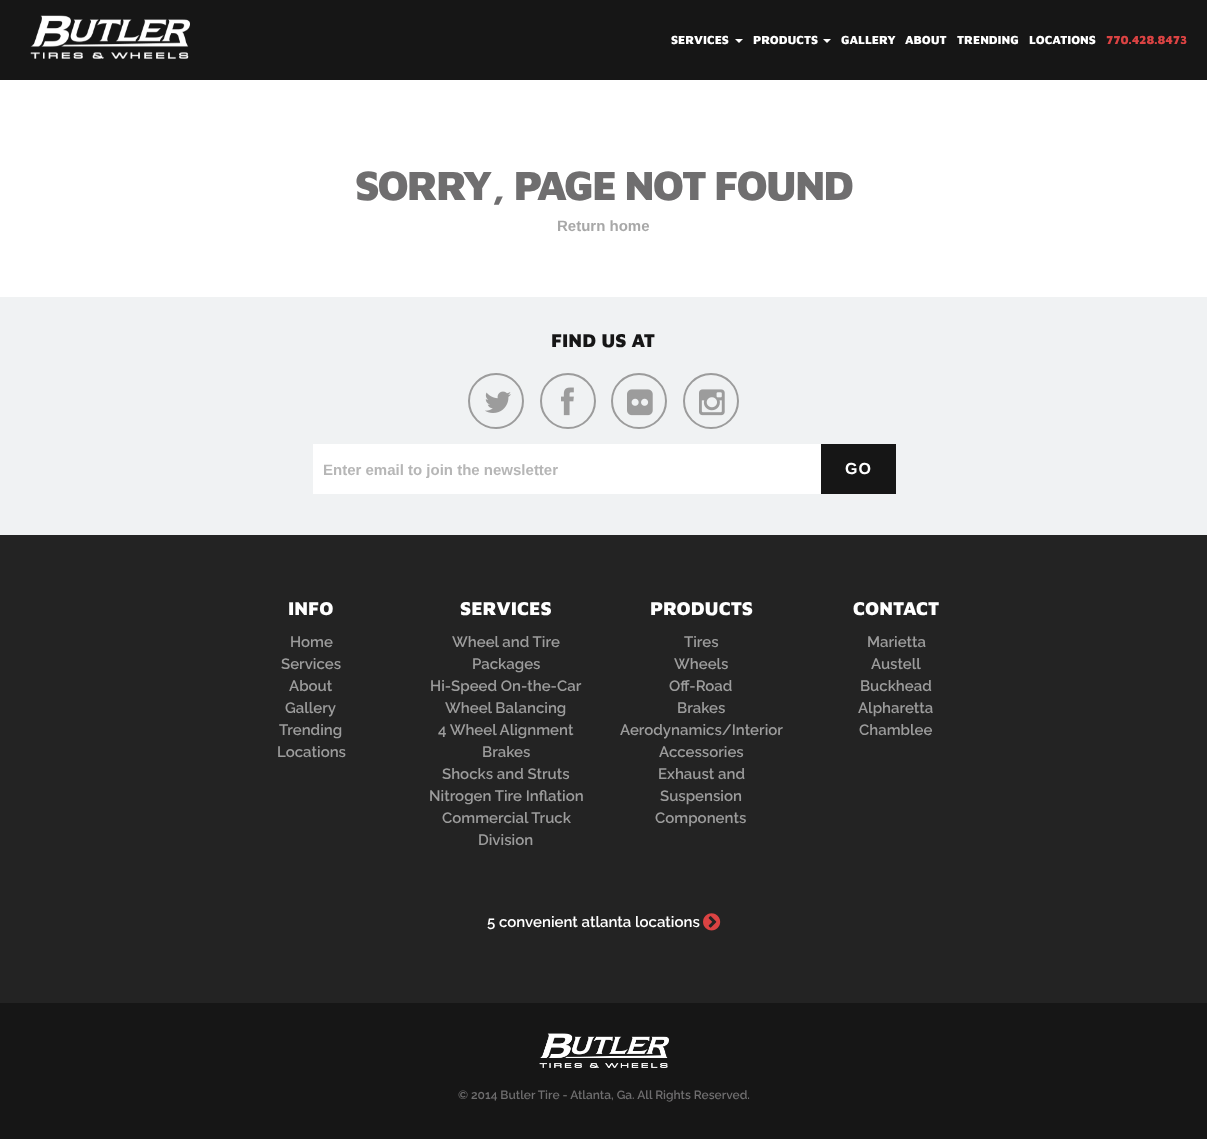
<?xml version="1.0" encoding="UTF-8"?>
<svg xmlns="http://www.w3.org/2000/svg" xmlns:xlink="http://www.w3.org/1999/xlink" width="1207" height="1139">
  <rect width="100%" height="100%" fill="#ffffff" />
  <rect width="1207" height="80" fill="#161616" />
  <image x="30" y="15" width="160" height="44" xlink:href="image1.png" />
  <path d="M 735 39 h 8 l -4 4 z" fill="#ffffff" />
  <path d="M 823 39 h 8 l -4 4 z" fill="#ffffff" />
  <rect y="297" width="1207" height="238" fill="#f0f2f3" />
  <circle cx="496" cy="401" r="27" fill="none" stroke="#9c9c9c" stroke-width="2" />
  <image x="485" y="391" width="26" height="22" xlink:href="image2.png" />
  <circle cx="568" cy="401" r="27" fill="none" stroke="#9c9c9c" stroke-width="2" />
  <image x="561" y="387" width="13" height="29" xlink:href="image3.png" />
  <circle cx="639" cy="401" r="27" fill="none" stroke="#9c9c9c" stroke-width="2" />
  <image x="627" y="389" width="26" height="27" xlink:href="image4.png" />
  <circle cx="711" cy="401" r="27" fill="none" stroke="#9c9c9c" stroke-width="2" />
  <image x="699" y="389" width="26" height="27" xlink:href="image5.png" />
  <rect x="313" y="444" width="508" height="50" fill="#ffffff" />
  <rect x="821" y="444" width="75" height="50" fill="#161616" />
  <rect y="535" width="1207" height="468" fill="#232323" />
  <image x="703" y="913" width="18" height="18" xlink:href="image6.png" />
  <rect y="1003" width="1207" height="136" fill="#161616" />
  <image x="539" y="1033" width="130" height="35" xlink:href="image7.png" />
  <text x="671" y="44" style="font-family: Maven Pro; font-size: 12px; font-weight: 900; fill: #ffffff">SERVICES</text>
  <text x="753" y="44" style="font-family: Maven Pro; font-size: 12px; font-weight: 900; fill: #ffffff">PRODUCTS</text>
  <text x="841" y="44" style="font-family: Maven Pro; font-size: 12px; font-weight: 900; fill: #ffffff">GALLERY</text>
  <text x="905" y="44" style="font-family: Maven Pro; font-size: 12px; font-weight: 900; fill: #ffffff">ABOUT</text>
  <text x="957" y="44" style="font-family: Maven Pro; font-size: 12px; font-weight: 900; fill: #ffffff">TRENDING</text>
  <text x="1029" y="44" style="font-family: Maven Pro; font-size: 12px; font-weight: 900; fill: #ffffff">LOCATIONS</text>
  <text x="1106" y="44" style="font-family: Maven Pro; font-size: 12px; font-weight: 900; fill: #db4343">770.428.8473</text>
  <text x="355" y="200" style="font-family: Maven Pro; font-size: 42px; font-weight: 900; letter-spacing: -2px; fill: #6f6e6f">SORRY, PAGE NOT FOUND</text>
  <text x="557" y="231" style="font-family: Liberation Sans; font-size: 15px; font-weight: bold; fill: #a8a8a8">Return home</text>
  <text x="551" y="347" style="font-family: Maven Pro; font-size: 19px; font-weight: 900; fill: #161616">FIND US AT</text>
  <text x="323" y="475" style="font-family: Liberation Sans; font-size: 15px; font-weight: bold; fill: #b6b6b6">Enter email to join the newsletter</text>
  <text x="845" y="474" style="font-family: Liberation Sans; font-size: 16px; font-weight: bold; letter-spacing: 1px; fill: #ffffff">GO</text>
  <text x="288" y="615" style="font-family: Maven Pro; font-size: 19px; font-weight: 900; fill: #ffffff">INFO</text>
  <text x="290" y="647" style="font-family: Raleway; font-size: 15px; font-weight: 600; fill: #9c9c9c">Home</text>
  <text x="281" y="669" style="font-family: Raleway; font-size: 15px; font-weight: 600; fill: #9c9c9c">Services</text>
  <text x="289" y="691" style="font-family: Raleway; font-size: 15px; font-weight: 600; fill: #9c9c9c">About</text>
  <text x="285" y="713" style="font-family: Raleway; font-size: 15px; font-weight: 600; fill: #9c9c9c">Gallery</text>
  <text x="279" y="735" style="font-family: Raleway; font-size: 15px; font-weight: 600; fill: #9c9c9c">Trending</text>
  <text x="277" y="757" style="font-family: Raleway; font-size: 15px; font-weight: 600; fill: #9c9c9c">Locations</text>
  <text x="460" y="615" style="font-family: Maven Pro; font-size: 19px; font-weight: 900; fill: #ffffff">SERVICES</text>
  <text x="452" y="647" style="font-family: Raleway; font-size: 15px; font-weight: 600; fill: #9c9c9c">Wheel and Tire</text>
  <text x="472" y="669" style="font-family: Raleway; font-size: 15px; font-weight: 600; fill: #9c9c9c">Packages</text>
  <text x="430" y="691" style="font-family: Raleway; font-size: 15px; font-weight: 600; fill: #9c9c9c">Hi-Speed On-the-Car</text>
  <text x="445" y="713" style="font-family: Raleway; font-size: 15px; font-weight: 600; fill: #9c9c9c">Wheel Balancing</text>
  <text x="438" y="735" style="font-family: Raleway; font-size: 15px; font-weight: 600; fill: #9c9c9c">4 Wheel Alignment</text>
  <text x="482" y="757" style="font-family: Raleway; font-size: 15px; font-weight: 600; fill: #9c9c9c">Brakes</text>
  <text x="442" y="779" style="font-family: Raleway; font-size: 15px; font-weight: 600; fill: #9c9c9c">Shocks and Struts</text>
  <text x="429" y="801" style="font-family: Raleway; font-size: 15px; font-weight: 600; fill: #9c9c9c">Nitrogen Tire Inflation</text>
  <text x="442" y="823" style="font-family: Raleway; font-size: 15px; font-weight: 600; fill: #9c9c9c">Commercial Truck</text>
  <text x="478" y="845" style="font-family: Raleway; font-size: 15px; font-weight: 600; fill: #9c9c9c">Division</text>
  <text x="650" y="615" style="font-family: Maven Pro; font-size: 19px; font-weight: 900; fill: #ffffff">PRODUCTS</text>
  <text x="684" y="647" style="font-family: Raleway; font-size: 15px; font-weight: 600; fill: #9c9c9c">Tires</text>
  <text x="674" y="669" style="font-family: Raleway; font-size: 15px; font-weight: 600; fill: #9c9c9c">Wheels</text>
  <text x="669" y="691" style="font-family: Raleway; font-size: 15px; font-weight: 600; fill: #9c9c9c">Off-Road</text>
  <text x="677" y="713" style="font-family: Raleway; font-size: 15px; font-weight: 600; fill: #9c9c9c">Brakes</text>
  <text x="620" y="735" style="font-family: Raleway; font-size: 15px; font-weight: 600; fill: #9c9c9c">Aerodynamics/Interior</text>
  <text x="659" y="757" style="font-family: Raleway; font-size: 15px; font-weight: 600; fill: #9c9c9c">Accessories</text>
  <text x="658" y="779" style="font-family: Raleway; font-size: 15px; font-weight: 600; fill: #9c9c9c">Exhaust and</text>
  <text x="660" y="801" style="font-family: Raleway; font-size: 15px; font-weight: 600; fill: #9c9c9c">Suspension</text>
  <text x="655" y="823" style="font-family: Raleway; font-size: 15px; font-weight: 600; fill: #9c9c9c">Components</text>
  <text x="853" y="615" style="font-family: Maven Pro; font-size: 19px; font-weight: 900; fill: #ffffff">CONTACT</text>
  <text x="867" y="647" style="font-family: Raleway; font-size: 15px; font-weight: 600; fill: #9c9c9c">Marietta</text>
  <text x="871" y="669" style="font-family: Raleway; font-size: 15px; font-weight: 600; fill: #9c9c9c">Austell</text>
  <text x="860" y="691" style="font-family: Raleway; font-size: 15px; font-weight: 600; fill: #9c9c9c">Buckhead</text>
  <text x="858" y="713" style="font-family: Raleway; font-size: 15px; font-weight: 600; fill: #9c9c9c">Alpharetta</text>
  <text x="859" y="735" style="font-family: Raleway; font-size: 15px; font-weight: 600; fill: #9c9c9c">Chamblee</text>
  <text x="487" y="927" style="font-family: Raleway; font-size: 15px; font-weight: 600; fill: #ffffff">5 convenient atlanta locations</text>
  <text x="458" y="1099" style="font-family: Raleway; font-size: 12px; font-weight: 600; fill: #6f6e6f">© 2014 Butler Tire - Atlanta, Ga. All Rights Reserved.</text>
</svg>
